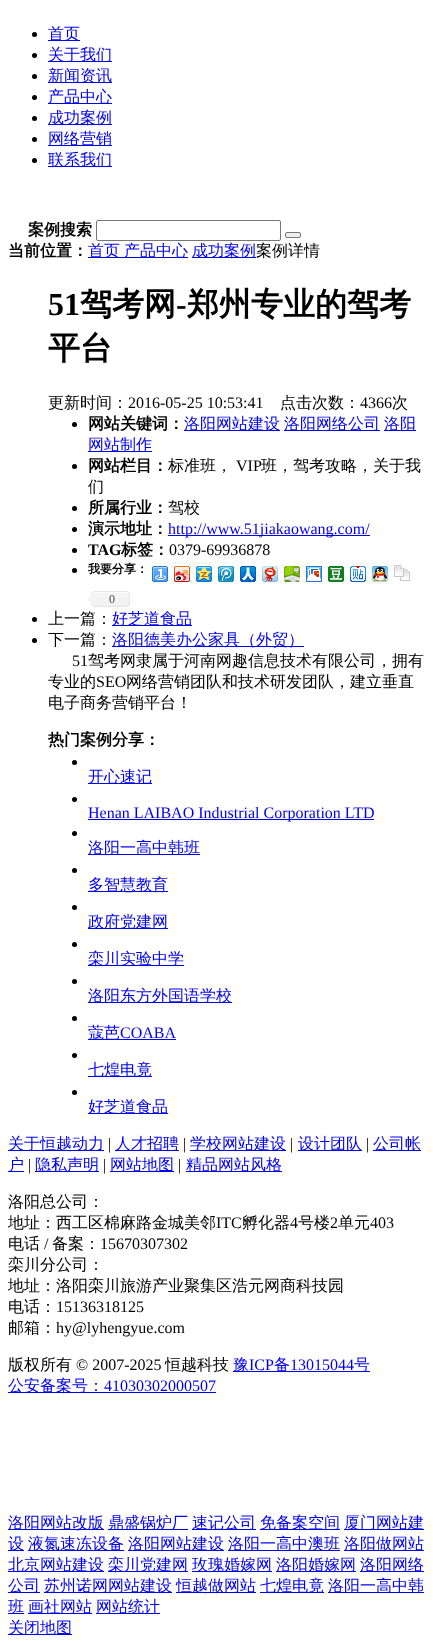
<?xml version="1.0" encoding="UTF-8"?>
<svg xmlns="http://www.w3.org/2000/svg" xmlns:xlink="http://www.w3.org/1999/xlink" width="433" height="1642">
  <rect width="100%" height="100%" fill="#ffffff" />
  <circle cx="34.5" cy="34.5" r="2.5" fill="#000000" />
  <rect x="48" y="40" width="32" height="1" fill="#0000ee" />
  <circle cx="34.5" cy="55.5" r="2.5" fill="#000000" />
  <rect x="48" y="61" width="64" height="1" fill="#0000ee" />
  <circle cx="34.5" cy="76.5" r="2.5" fill="#000000" />
  <rect x="48" y="82" width="64" height="1" fill="#0000ee" />
  <circle cx="34.5" cy="97.5" r="2.5" fill="#000000" />
  <rect x="48" y="103" width="64" height="1" fill="#0000ee" />
  <circle cx="34.5" cy="118.5" r="2.5" fill="#000000" />
  <rect x="48" y="124" width="64" height="1" fill="#0000ee" />
  <circle cx="34.5" cy="139.5" r="2.5" fill="#000000" />
  <rect x="48" y="145" width="64" height="1" fill="#0000ee" />
  <circle cx="34.5" cy="160.5" r="2.5" fill="#000000" />
  <rect x="48" y="166" width="64" height="1" fill="#0000ee" />
  <rect x="96.5" y="220.5" width="184" height="20" rx="1.5" fill="none" stroke="#767676" />
  <rect x="285.5" y="232.5" width="15" height="5" rx="1.5" fill="#efefef" stroke="#767676" />
  <rect x="88" y="257" width="100" height="1" fill="#0000ee" />
  <rect x="192" y="257" width="64" height="1" fill="#0000ee" />
  <circle cx="74.5" cy="424.5" r="2.5" fill="#000000" />
  <rect x="184" y="430" width="96" height="1" fill="#0000ee" />
  <rect x="284" y="430" width="96" height="1" fill="#0000ee" />
  <rect x="384" y="430" width="32" height="1" fill="#0000ee" />
  <rect x="88" y="451" width="64" height="1" fill="#0000ee" />
  <circle cx="74.5" cy="466.5" r="2.5" fill="#000000" />
  <circle cx="74.5" cy="508.5" r="2.5" fill="#000000" />
  <circle cx="74.5" cy="529.5" r="2.5" fill="#000000" />
  <rect x="168" y="535" width="202" height="1" fill="#0000ee" />
  <circle cx="74.5" cy="550.5" r="2.5" fill="#000000" />
  <circle cx="74.5" cy="570.5" r="2.5" fill="#000000" />
  <image x="152" y="566" width="16" height="16" xlink:href="image1.png" />
  <image x="174" y="566" width="16" height="16" xlink:href="image2.png" />
  <image x="196" y="566" width="16" height="16" xlink:href="image3.png" />
  <image x="218" y="566" width="16" height="16" xlink:href="image4.png" />
  <image x="240" y="566" width="16" height="16" xlink:href="image5.png" />
  <image x="262" y="566" width="16" height="16" xlink:href="image6.png" />
  <image x="284" y="566" width="16" height="16" xlink:href="image7.png" />
  <image x="306" y="566" width="16" height="16" xlink:href="image8.png" />
  <image x="328" y="566" width="16" height="16" xlink:href="image9.png" />
  <image x="350" y="566" width="16" height="16" xlink:href="image10.png" />
  <image x="372" y="566" width="16" height="16" xlink:href="image11.png" />
  <image x="394" y="565" width="16" height="16" xlink:href="image12.png" />
  <image x="88" y="591" width="42" height="16" xlink:href="image13.png" />
  <circle cx="34.5" cy="619.5" r="2.5" fill="#000000" />
  <rect x="112" y="625" width="80" height="1" fill="#0000ee" />
  <circle cx="34.5" cy="640.5" r="2.5" fill="#000000" />
  <rect x="112" y="646" width="192" height="1" fill="#0000ee" />
  <circle cx="74.5" cy="762.5" r="2.5" fill="#000000" />
  <rect x="88" y="783" width="64" height="1" fill="#0000ee" />
  <circle cx="74.5" cy="799.5" r="2.5" fill="#000000" />
  <rect x="88" y="819" width="286" height="1" fill="#0000ee" />
  <circle cx="74.5" cy="833.5" r="2.5" fill="#000000" />
  <rect x="88" y="854" width="112" height="1" fill="#0000ee" />
  <circle cx="74.5" cy="870.5" r="2.5" fill="#000000" />
  <rect x="88" y="891" width="80" height="1" fill="#0000ee" />
  <circle cx="74.5" cy="907.5" r="2.5" fill="#000000" />
  <rect x="88" y="928" width="80" height="1" fill="#0000ee" />
  <circle cx="74.5" cy="944.5" r="2.5" fill="#000000" />
  <rect x="88" y="965" width="96" height="1" fill="#0000ee" />
  <circle cx="74.5" cy="981.5" r="2.5" fill="#000000" />
  <rect x="88" y="1002" width="144" height="1" fill="#0000ee" />
  <circle cx="74.5" cy="1018.5" r="2.5" fill="#000000" />
  <rect x="88" y="1039" width="88" height="1" fill="#0000ee" />
  <circle cx="74.5" cy="1055.5" r="2.5" fill="#000000" />
  <rect x="88" y="1076" width="64" height="1" fill="#0000ee" />
  <circle cx="74.5" cy="1092.5" r="2.5" fill="#000000" />
  <rect x="88" y="1113" width="80" height="1" fill="#0000ee" />
  <rect x="8" y="1150" width="96" height="1" fill="#0000ee" />
  <rect x="115" y="1150" width="64" height="1" fill="#0000ee" />
  <rect x="190" y="1150" width="96" height="1" fill="#0000ee" />
  <rect x="298" y="1150" width="64" height="1" fill="#0000ee" />
  <rect x="373" y="1150" width="48" height="1" fill="#0000ee" />
  <rect x="8" y="1171" width="16" height="1" fill="#0000ee" />
  <rect x="35" y="1171" width="64" height="1" fill="#0000ee" />
  <rect x="110" y="1171" width="64" height="1" fill="#0000ee" />
  <rect x="186" y="1171" width="96" height="1" fill="#0000ee" />
  <rect x="233" y="1371" width="137" height="1" fill="#0000ee" />
  <rect x="8" y="1392" width="208" height="1" fill="#0000ee" />
  <rect x="8" y="1529" width="96" height="1" fill="#0000ee" />
  <rect x="108" y="1529" width="80" height="1" fill="#0000ee" />
  <rect x="192" y="1529" width="64" height="1" fill="#0000ee" />
  <rect x="260" y="1529" width="80" height="1" fill="#0000ee" />
  <rect x="344" y="1529" width="80" height="1" fill="#0000ee" />
  <rect x="8" y="1550" width="16" height="1" fill="#0000ee" />
  <rect x="28" y="1550" width="96" height="1" fill="#0000ee" />
  <rect x="128" y="1550" width="96" height="1" fill="#0000ee" />
  <rect x="228" y="1550" width="112" height="1" fill="#0000ee" />
  <rect x="344" y="1550" width="80" height="1" fill="#0000ee" />
  <rect x="8" y="1571" width="96" height="1" fill="#0000ee" />
  <rect x="108" y="1571" width="80" height="1" fill="#0000ee" />
  <rect x="192" y="1571" width="80" height="1" fill="#0000ee" />
  <rect x="276" y="1571" width="80" height="1" fill="#0000ee" />
  <rect x="360" y="1571" width="64" height="1" fill="#0000ee" />
  <rect x="8" y="1592" width="32" height="1" fill="#0000ee" />
  <rect x="44" y="1592" width="128" height="1" fill="#0000ee" />
  <rect x="176" y="1592" width="80" height="1" fill="#0000ee" />
  <rect x="260" y="1592" width="64" height="1" fill="#0000ee" />
  <rect x="328" y="1592" width="96" height="1" fill="#0000ee" />
  <rect x="8" y="1613" width="16" height="1" fill="#0000ee" />
  <rect x="28" y="1613" width="64" height="1" fill="#0000ee" />
  <rect x="96" y="1613" width="64" height="1" fill="#0000ee" />
  <rect x="8" y="1634" width="64" height="1" fill="#0000ee" />
  <text x="48" y="39" style="font-family: WenQuanYi Zen Hei; font-size: 16px; font-weight: 500; fill: #0000ee">首页</text>
  <text x="48" y="60" style="font-family: WenQuanYi Zen Hei; font-size: 16px; font-weight: 500; fill: #0000ee">关于我们</text>
  <text x="48" y="81" style="font-family: WenQuanYi Zen Hei; font-size: 16px; font-weight: 500; fill: #0000ee">新闻资讯</text>
  <text x="48" y="102" style="font-family: WenQuanYi Zen Hei; font-size: 16px; font-weight: 500; fill: #0000ee">产品中心</text>
  <text x="48" y="123" style="font-family: WenQuanYi Zen Hei; font-size: 16px; font-weight: 500; fill: #0000ee">成功案例</text>
  <text x="48" y="144" style="font-family: WenQuanYi Zen Hei; font-size: 16px; font-weight: 500; fill: #0000ee">网络营销</text>
  <text x="48" y="165" style="font-family: WenQuanYi Zen Hei; font-size: 16px; font-weight: 500; fill: #0000ee">联系我们</text>
  <text x="28" y="235" style="font-family: WenQuanYi Zen Hei; font-size: 16px; font-weight: bold; fill: #000000">案例搜索</text>
  <text x="8" y="256" style="font-family: WenQuanYi Zen Hei; font-size: 16px; font-weight: bold; fill: #000000">当前位置：</text>
  <text x="88" y="256" style="font-family: WenQuanYi Zen Hei; font-size: 16px; font-weight: 500; fill: #0000ee">首页</text>
  <text x="124" y="256" style="font-family: WenQuanYi Zen Hei; font-size: 16px; font-weight: 500; fill: #0000ee">产品中心</text>
  <text x="192" y="256" style="font-family: WenQuanYi Zen Hei; font-size: 16px; font-weight: 500; fill: #0000ee">成功案例</text>
  <text x="256" y="256" style="font-family: WenQuanYi Zen Hei; font-size: 16px; font-weight: 500; fill: #000000">案例详情</text>
  <text x="48" y="315" style="font-family: Liberation Serif; font-size: 32px; font-weight: bold; fill: #000000">51</text>
  <text x="80" y="315" style="font-family: WenQuanYi Zen Hei; font-size: 32px; font-weight: bold; fill: #000000">驾考网</text>
  <text x="176" y="315" style="font-family: Liberation Serif; font-size: 32px; font-weight: bold; fill: #000000">-</text>
  <text x="187" y="315" style="font-family: WenQuanYi Zen Hei; font-size: 32px; font-weight: bold; fill: #000000">郑州专业的驾考</text>
  <text x="48" y="359" style="font-family: WenQuanYi Zen Hei; font-size: 32px; font-weight: bold; fill: #000000">平台</text>
  <text x="48" y="408" style="font-family: WenQuanYi Zen Hei; font-size: 16px; font-weight: 500; fill: #000000">更新时间：</text>
  <text x="128" y="408" style="font-family: Liberation Serif; font-size: 16px; fill: #000000">2016-05-25 10:53:41</text>
  <text x="280" y="408" style="font-family: WenQuanYi Zen Hei; font-size: 16px; font-weight: 500; fill: #000000">点击次数：</text>
  <text x="360" y="408" style="font-family: Liberation Serif; font-size: 16px; fill: #000000">4366</text>
  <text x="392" y="408" style="font-family: WenQuanYi Zen Hei; font-size: 16px; font-weight: 500; fill: #000000">次</text>
  <text x="88" y="429" style="font-family: WenQuanYi Zen Hei; font-size: 16px; font-weight: bold; fill: #000000">网站关键词：</text>
  <text x="184" y="429" style="font-family: WenQuanYi Zen Hei; font-size: 16px; font-weight: 500; fill: #0000ee">洛阳网站建设</text>
  <text x="284" y="429" style="font-family: WenQuanYi Zen Hei; font-size: 16px; font-weight: 500; fill: #0000ee">洛阳网络公司</text>
  <text x="384" y="429" style="font-family: WenQuanYi Zen Hei; font-size: 16px; font-weight: 500; fill: #0000ee">洛阳</text>
  <text x="88" y="450" style="font-family: WenQuanYi Zen Hei; font-size: 16px; font-weight: 500; fill: #0000ee">网站制作</text>
  <text x="88" y="471" style="font-family: WenQuanYi Zen Hei; font-size: 16px; font-weight: bold; fill: #000000">网站栏目：</text>
  <text x="168" y="471" style="font-family: WenQuanYi Zen Hei; font-size: 16px; font-weight: 500; fill: #000000">标准班，</text>
  <text x="236" y="471" style="font-family: Liberation Serif; font-size: 16px; fill: #000000">VIP</text>
  <text x="261" y="471" style="font-family: WenQuanYi Zen Hei; font-size: 16px; font-weight: 500; fill: #000000">班，驾考攻略，关于我</text>
  <text x="88" y="492" style="font-family: WenQuanYi Zen Hei; font-size: 16px; font-weight: 500; fill: #000000">们</text>
  <text x="88" y="513" style="font-family: WenQuanYi Zen Hei; font-size: 16px; font-weight: bold; fill: #000000">所属行业：</text>
  <text x="168" y="513" style="font-family: WenQuanYi Zen Hei; font-size: 16px; font-weight: 500; fill: #000000">驾校</text>
  <text x="88" y="534" style="font-family: WenQuanYi Zen Hei; font-size: 16px; font-weight: bold; fill: #000000">演示地址：</text>
  <text x="168" y="534" style="font-family: Liberation Serif; font-size: 16px; fill: #0000ee">http://www.51jiakaowang.com/</text>
  <text x="88" y="555" style="font-family: Liberation Serif; font-size: 16px; font-weight: bold; fill: #000000">TAG</text>
  <text x="121" y="555" style="font-family: WenQuanYi Zen Hei; font-size: 16px; font-weight: bold; fill: #000000">标签：</text>
  <text x="169" y="555" style="font-family: Liberation Serif; font-size: 16px; fill: #000000">0379-69936878</text>
  <text x="88" y="573" style="font-family: WenQuanYi Zen Hei; font-size: 12px; font-weight: bold; fill: #000000">我要分享：</text>
  <text x="109" y="603" style="font-family: Liberation Serif; font-size: 12px; fill: #454545">0</text>
  <text x="48" y="624" style="font-family: WenQuanYi Zen Hei; font-size: 16px; font-weight: 500; fill: #000000">上一篇：</text>
  <text x="112" y="624" style="font-family: WenQuanYi Zen Hei; font-size: 16px; font-weight: 500; fill: #0000ee">好芝道食品</text>
  <text x="48" y="645" style="font-family: WenQuanYi Zen Hei; font-size: 16px; font-weight: 500; fill: #000000">下一篇：</text>
  <text x="112" y="645" style="font-family: WenQuanYi Zen Hei; font-size: 16px; font-weight: 500; fill: #0000ee">洛阳德美办公家具（外贸）</text>
  <text x="72" y="666" style="font-family: Liberation Serif; font-size: 16px; fill: #000000">51</text>
  <text x="88" y="666" style="font-family: WenQuanYi Zen Hei; font-size: 16px; font-weight: 500; fill: #000000">驾考网隶属于河南网趣信息技术有限公司，拥有</text>
  <text x="48" y="687" style="font-family: WenQuanYi Zen Hei; font-size: 16px; font-weight: 500; fill: #000000">专业的</text>
  <text x="96" y="687" style="font-family: Liberation Serif; font-size: 16px; fill: #000000">SEO</text>
  <text x="126" y="687" style="font-family: WenQuanYi Zen Hei; font-size: 16px; font-weight: 500; fill: #000000">网络营销团队和技术研发团队，建立垂直</text>
  <text x="48" y="708" style="font-family: WenQuanYi Zen Hei; font-size: 16px; font-weight: 500; fill: #000000">电子商务营销平台！</text>
  <text x="48" y="745" style="font-family: WenQuanYi Zen Hei; font-size: 16px; font-weight: bold; fill: #000000">热门案例分享：</text>
  <text x="88" y="782" style="font-family: WenQuanYi Zen Hei; font-size: 16px; font-weight: 500; fill: #0000ee">开心速记</text>
  <text x="88" y="818" style="font-family: Liberation Serif; font-size: 16px; fill: #0000ee">Henan LAIBAO Industrial Corporation LTD</text>
  <text x="88" y="853" style="font-family: WenQuanYi Zen Hei; font-size: 16px; font-weight: 500; fill: #0000ee">洛阳一高中韩班</text>
  <text x="88" y="890" style="font-family: WenQuanYi Zen Hei; font-size: 16px; font-weight: 500; fill: #0000ee">多智慧教育</text>
  <text x="88" y="927" style="font-family: WenQuanYi Zen Hei; font-size: 16px; font-weight: 500; fill: #0000ee">政府党建网</text>
  <text x="88" y="964" style="font-family: WenQuanYi Zen Hei; font-size: 16px; font-weight: 500; fill: #0000ee">栾川实验中学</text>
  <text x="88" y="1001" style="font-family: WenQuanYi Zen Hei; font-size: 16px; font-weight: 500; fill: #0000ee">洛阳东方外国语学校</text>
  <text x="88" y="1038" style="font-family: WenQuanYi Zen Hei; font-size: 16px; font-weight: 500; fill: #0000ee">蔻芭</text>
  <text x="120" y="1038" style="font-family: Liberation Serif; font-size: 16px; fill: #0000ee">COABA</text>
  <text x="88" y="1075" style="font-family: WenQuanYi Zen Hei; font-size: 16px; font-weight: 500; fill: #0000ee">七煌电竟</text>
  <text x="88" y="1112" style="font-family: WenQuanYi Zen Hei; font-size: 16px; font-weight: 500; fill: #0000ee">好芝道食品</text>
  <text x="8" y="1149" style="font-family: WenQuanYi Zen Hei; font-size: 16px; font-weight: 500; fill: #0000ee">关于恒越动力</text>
  <text x="108" y="1149" style="font-family: Liberation Serif; font-size: 16px; fill: #000000">|</text>
  <text x="115" y="1149" style="font-family: WenQuanYi Zen Hei; font-size: 16px; font-weight: 500; fill: #0000ee">人才招聘</text>
  <text x="183" y="1149" style="font-family: Liberation Serif; font-size: 16px; fill: #000000">|</text>
  <text x="190" y="1149" style="font-family: WenQuanYi Zen Hei; font-size: 16px; font-weight: 500; fill: #0000ee">学校网站建设</text>
  <text x="290" y="1149" style="font-family: Liberation Serif; font-size: 16px; fill: #000000">|</text>
  <text x="298" y="1149" style="font-family: WenQuanYi Zen Hei; font-size: 16px; font-weight: 500; fill: #0000ee">设计团队</text>
  <text x="366" y="1149" style="font-family: Liberation Serif; font-size: 16px; fill: #000000">|</text>
  <text x="373" y="1149" style="font-family: WenQuanYi Zen Hei; font-size: 16px; font-weight: 500; fill: #0000ee">公司帐</text>
  <text x="8" y="1170" style="font-family: WenQuanYi Zen Hei; font-size: 16px; font-weight: 500; fill: #0000ee">户</text>
  <text x="28" y="1170" style="font-family: Liberation Serif; font-size: 16px; fill: #000000">|</text>
  <text x="35" y="1170" style="font-family: WenQuanYi Zen Hei; font-size: 16px; font-weight: 500; fill: #0000ee">隐私声明</text>
  <text x="103" y="1170" style="font-family: Liberation Serif; font-size: 16px; fill: #000000">|</text>
  <text x="110" y="1170" style="font-family: WenQuanYi Zen Hei; font-size: 16px; font-weight: 500; fill: #0000ee">网站地图</text>
  <text x="178" y="1170" style="font-family: Liberation Serif; font-size: 16px; fill: #000000">|</text>
  <text x="186" y="1170" style="font-family: WenQuanYi Zen Hei; font-size: 16px; font-weight: 500; fill: #0000ee">精品网站风格</text>
  <text x="8" y="1207" style="font-family: WenQuanYi Zen Hei; font-size: 16px; font-weight: 500; fill: #000000">洛阳总公司：</text>
  <text x="8" y="1228" style="font-family: WenQuanYi Zen Hei; font-size: 16px; font-weight: 500; fill: #000000">地址：西工区棉麻路金城美邻</text>
  <text x="216" y="1228" style="font-family: Liberation Serif; font-size: 16px; fill: #000000">ITC</text>
  <text x="242" y="1228" style="font-family: WenQuanYi Zen Hei; font-size: 16px; font-weight: 500; fill: #000000">孵化器</text>
  <text x="290" y="1228" style="font-family: Liberation Serif; font-size: 16px; fill: #000000">4</text>
  <text x="298" y="1228" style="font-family: WenQuanYi Zen Hei; font-size: 16px; font-weight: 500; fill: #000000">号楼</text>
  <text x="330" y="1228" style="font-family: Liberation Serif; font-size: 16px; fill: #000000">2</text>
  <text x="338" y="1228" style="font-family: WenQuanYi Zen Hei; font-size: 16px; font-weight: 500; fill: #000000">单元</text>
  <text x="370" y="1228" style="font-family: Liberation Serif; font-size: 16px; fill: #000000">403</text>
  <text x="8" y="1249" style="font-family: WenQuanYi Zen Hei; font-size: 16px; font-weight: 500; fill: #000000">电话</text>
  <text x="44" y="1249" style="font-family: Liberation Serif; font-size: 16px; fill: #000000">/</text>
  <text x="52" y="1249" style="font-family: WenQuanYi Zen Hei; font-size: 16px; font-weight: 500; fill: #000000">备案：</text>
  <text x="100" y="1249" style="font-family: Liberation Serif; font-size: 16px; fill: #000000">15670307302</text>
  <text x="8" y="1270" style="font-family: WenQuanYi Zen Hei; font-size: 16px; font-weight: 500; fill: #000000">栾川分公司：</text>
  <text x="8" y="1291" style="font-family: WenQuanYi Zen Hei; font-size: 16px; font-weight: 500; fill: #000000">地址：洛阳栾川旅游产业聚集区浩元网商科技园</text>
  <text x="8" y="1312" style="font-family: WenQuanYi Zen Hei; font-size: 16px; font-weight: 500; fill: #000000">电话：</text>
  <text x="56" y="1312" style="font-family: Liberation Serif; font-size: 16px; fill: #000000">15136318125</text>
  <text x="8" y="1333" style="font-family: WenQuanYi Zen Hei; font-size: 16px; font-weight: 500; fill: #000000">邮箱：</text>
  <text x="56" y="1333" style="font-family: Liberation Serif; font-size: 16px; fill: #000000">hy@lyhengyue.com</text>
  <text x="8" y="1370" style="font-family: WenQuanYi Zen Hei; font-size: 16px; font-weight: 500; fill: #000000">版权所有</text>
  <text x="76" y="1370" style="font-family: Liberation Serif; font-size: 16px; fill: #000000">© 2007-2025</text>
  <text x="165" y="1370" style="font-family: WenQuanYi Zen Hei; font-size: 16px; font-weight: 500; fill: #000000">恒越科技</text>
  <text x="233" y="1370" style="font-family: WenQuanYi Zen Hei; font-size: 16px; font-weight: 500; fill: #0000ee">豫</text>
  <text x="249" y="1370" style="font-family: Liberation Serif; font-size: 16px; fill: #0000ee">ICP</text>
  <text x="274" y="1370" style="font-family: WenQuanYi Zen Hei; font-size: 16px; font-weight: 500; fill: #0000ee">备</text>
  <text x="290" y="1370" style="font-family: Liberation Serif; font-size: 16px; fill: #0000ee">13015044</text>
  <text x="354" y="1370" style="font-family: WenQuanYi Zen Hei; font-size: 16px; font-weight: 500; fill: #0000ee">号</text>
  <text x="8" y="1391" style="font-family: WenQuanYi Zen Hei; font-size: 16px; font-weight: 500; fill: #0000ee">公安备案号：</text>
  <text x="104" y="1391" style="font-family: Liberation Serif; font-size: 16px; fill: #0000ee">41030302000507</text>
  <text x="8" y="1528" style="font-family: WenQuanYi Zen Hei; font-size: 16px; font-weight: 500; fill: #0000ee">洛阳网站改版</text>
  <text x="108" y="1528" style="font-family: WenQuanYi Zen Hei; font-size: 16px; font-weight: 500; fill: #0000ee">鼎盛锅炉厂</text>
  <text x="192" y="1528" style="font-family: WenQuanYi Zen Hei; font-size: 16px; font-weight: 500; fill: #0000ee">速记公司</text>
  <text x="260" y="1528" style="font-family: WenQuanYi Zen Hei; font-size: 16px; font-weight: 500; fill: #0000ee">免备案空间</text>
  <text x="344" y="1528" style="font-family: WenQuanYi Zen Hei; font-size: 16px; font-weight: 500; fill: #0000ee">厦门网站建</text>
  <text x="8" y="1549" style="font-family: WenQuanYi Zen Hei; font-size: 16px; font-weight: 500; fill: #0000ee">设</text>
  <text x="28" y="1549" style="font-family: WenQuanYi Zen Hei; font-size: 16px; font-weight: 500; fill: #0000ee">液氮速冻设备</text>
  <text x="128" y="1549" style="font-family: WenQuanYi Zen Hei; font-size: 16px; font-weight: 500; fill: #0000ee">洛阳网站建设</text>
  <text x="228" y="1549" style="font-family: WenQuanYi Zen Hei; font-size: 16px; font-weight: 500; fill: #0000ee">洛阳一高中澳班</text>
  <text x="344" y="1549" style="font-family: WenQuanYi Zen Hei; font-size: 16px; font-weight: 500; fill: #0000ee">洛阳做网站</text>
  <text x="8" y="1570" style="font-family: WenQuanYi Zen Hei; font-size: 16px; font-weight: 500; fill: #0000ee">北京网站建设</text>
  <text x="108" y="1570" style="font-family: WenQuanYi Zen Hei; font-size: 16px; font-weight: 500; fill: #0000ee">栾川党建网</text>
  <text x="192" y="1570" style="font-family: WenQuanYi Zen Hei; font-size: 16px; font-weight: 500; fill: #0000ee">玫瑰婚嫁网</text>
  <text x="276" y="1570" style="font-family: WenQuanYi Zen Hei; font-size: 16px; font-weight: 500; fill: #0000ee">洛阳婚嫁网</text>
  <text x="360" y="1570" style="font-family: WenQuanYi Zen Hei; font-size: 16px; font-weight: 500; fill: #0000ee">洛阳网络</text>
  <text x="8" y="1591" style="font-family: WenQuanYi Zen Hei; font-size: 16px; font-weight: 500; fill: #0000ee">公司</text>
  <text x="44" y="1591" style="font-family: WenQuanYi Zen Hei; font-size: 16px; font-weight: 500; fill: #0000ee">苏州诺网网站建设</text>
  <text x="176" y="1591" style="font-family: WenQuanYi Zen Hei; font-size: 16px; font-weight: 500; fill: #0000ee">恒越做网站</text>
  <text x="260" y="1591" style="font-family: WenQuanYi Zen Hei; font-size: 16px; font-weight: 500; fill: #0000ee">七煌电竟</text>
  <text x="328" y="1591" style="font-family: WenQuanYi Zen Hei; font-size: 16px; font-weight: 500; fill: #0000ee">洛阳一高中韩</text>
  <text x="8" y="1612" style="font-family: WenQuanYi Zen Hei; font-size: 16px; font-weight: 500; fill: #0000ee">班</text>
  <text x="28" y="1612" style="font-family: WenQuanYi Zen Hei; font-size: 16px; font-weight: 500; fill: #0000ee">画社网站</text>
  <text x="96" y="1612" style="font-family: WenQuanYi Zen Hei; font-size: 16px; font-weight: 500; fill: #0000ee">网站统计</text>
  <text x="8" y="1633" style="font-family: WenQuanYi Zen Hei; font-size: 16px; font-weight: 500; fill: #0000ee">关闭地图</text>
</svg>
